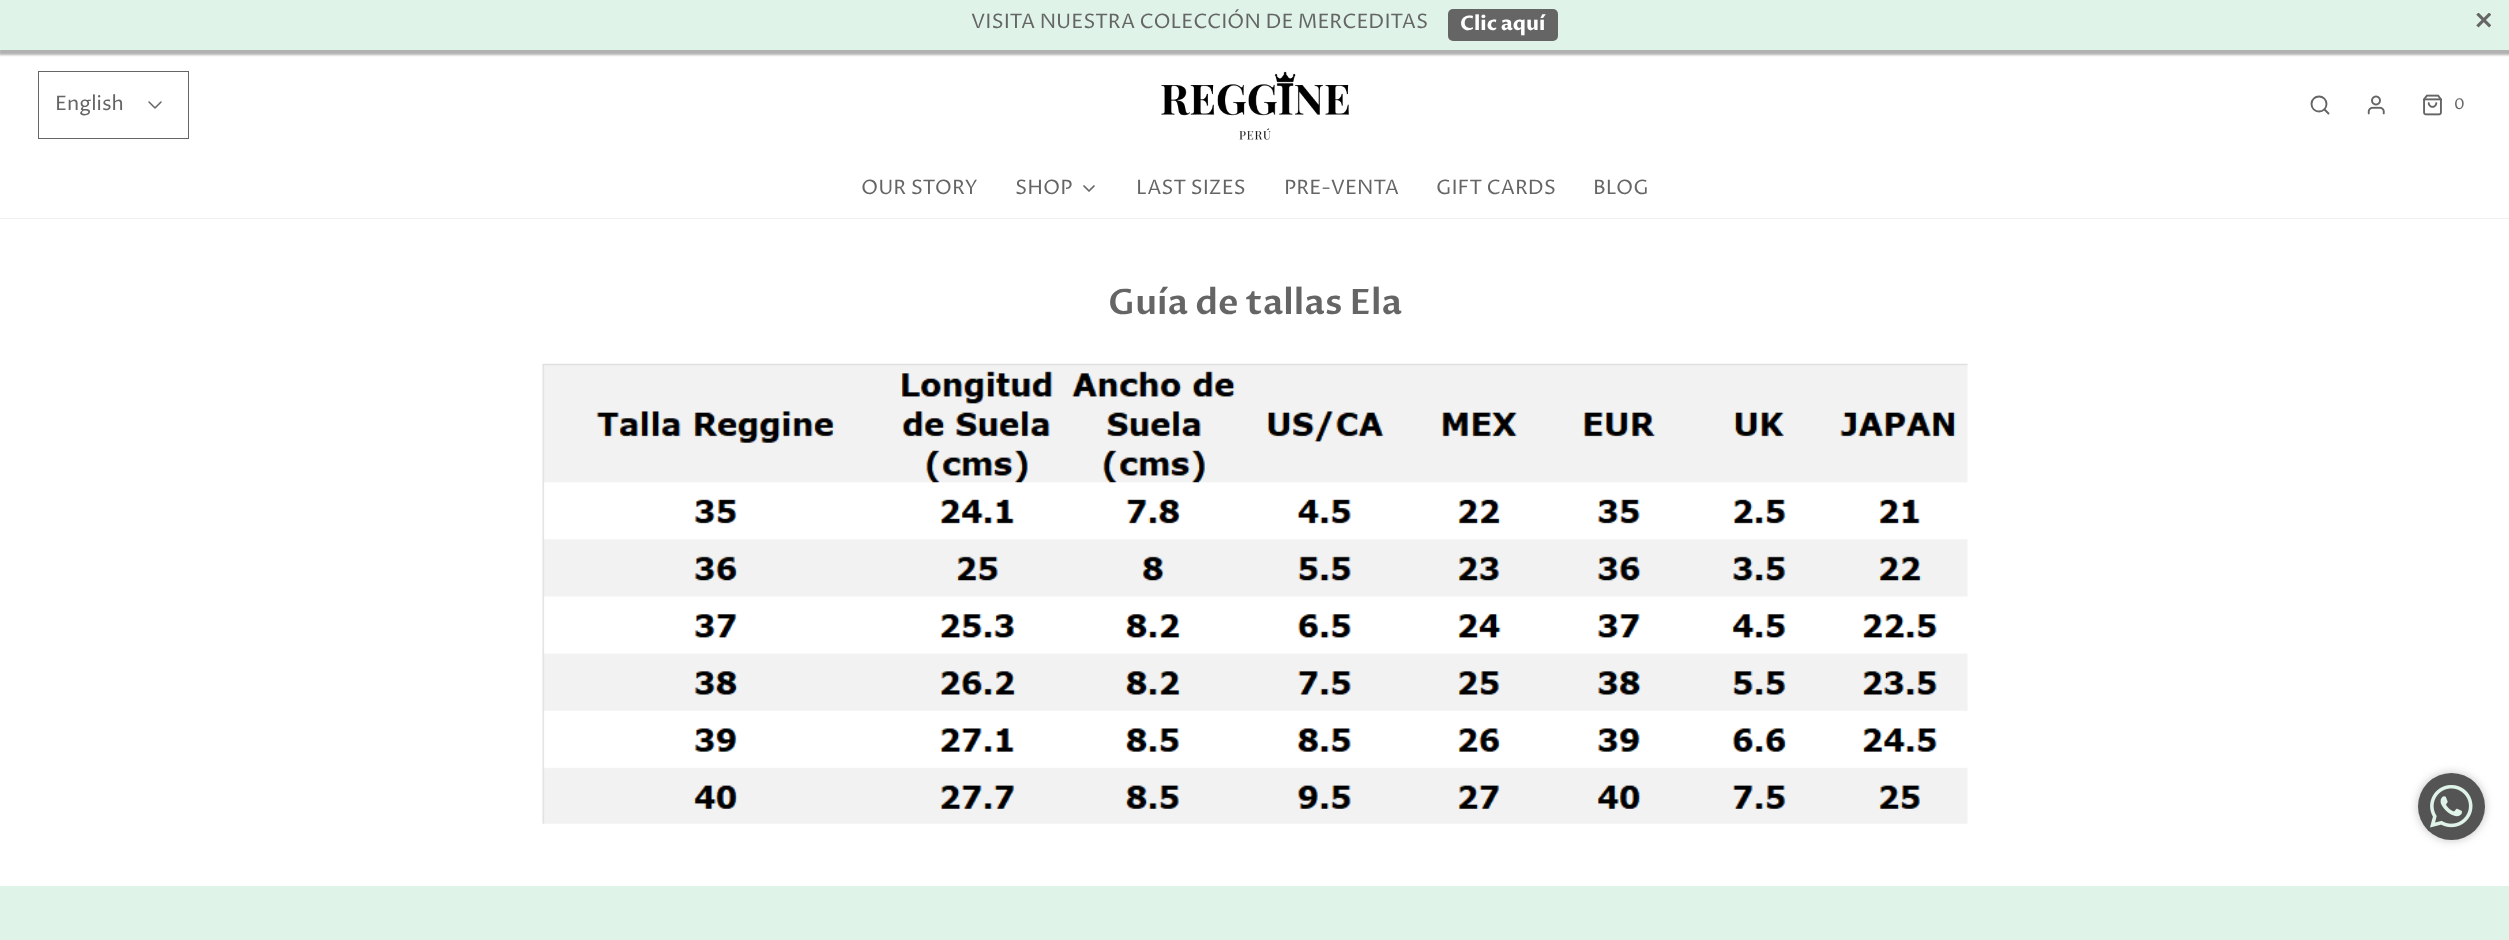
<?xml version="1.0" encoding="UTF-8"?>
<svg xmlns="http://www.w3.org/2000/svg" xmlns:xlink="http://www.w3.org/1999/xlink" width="2509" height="940">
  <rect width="100%" height="100%" fill="#ffffff" />
  <rect x="-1" y="3" width="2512" height="52" fill="#000000" fill-opacity="0.3" filter="blur(1px)" />
  <rect width="2509" height="50" fill="#dff3e9" />
  <rect x="1448" y="9" width="110" height="32" rx="5" fill="#656565" />
  <image x="2476" y="13" width="15" height="15" xlink:href="image1.png" />
  <rect y="218" width="2509" height="1" fill="#f0f0f0" />
  <rect x="38.5" y="71.5" width="150" height="67" fill="none" stroke="#656565" />
  <image x="148" y="101" width="14" height="8" xlink:href="image2.png" />
  <image x="1161" y="71" width="189" height="69" xlink:href="image3.png" />
  <circle cx="2319" cy="104" r="7.5" fill="none" stroke="#656565" stroke-width="1.9" />
  <path d="M 2328.5 113.5 l -4 -4" fill="none" stroke="#656565" stroke-width="1.9" stroke-linecap="round" stroke-linejoin="round" />
  <image x="2367" y="95" width="18" height="20" xlink:href="image4.png" />
  <image x="2423" y="94" width="19" height="22" xlink:href="image5.png" />
  <path d="M 1084 186 l 5 5 l 5 -5" fill="none" stroke="#656565" stroke-width="1.7" stroke-linecap="round" stroke-linejoin="round" />
  <image x="542" y="363" width="1426" height="461" xlink:href="image6.png" />
  <rect y="886" width="2509" height="54" fill="#dff3e9" />
  <rect x="2418" y="773" width="67" height="67" rx="33.5" fill="#c2c2c2" filter="blur(5px)" />
  <circle cx="2451.5" cy="806.5" r="33.5" fill="#545454" />
  <image x="2430" y="785" width="43" height="43" xlink:href="image7.png" />
  <text x="971" y="28" style="font-family: Proza Libre; font-size: 20px; fill: #656565">VISITA NUESTRA COLECCIÓN DE MERCEDITAS</text>
  <text x="1460" y="30" style="font-family: Proza Libre; font-size: 20px; font-weight: bold; fill: #ffffff">Clic aquí</text>
  <text x="55" y="110" style="font-family: Proza Libre; font-size: 20px; fill: #656565">English</text>
  <text x="2454" y="109" style="font-family: Proza Libre; font-size: 15px; fill: #656565">0</text>
  <text x="861" y="194" style="font-family: Proza Libre; font-size: 20px; fill: #656565">OUR STORY</text>
  <text x="1015" y="194" style="font-family: Proza Libre; font-size: 20px; fill: #656565">SHOP</text>
  <text x="1136" y="194" style="font-family: Proza Libre; font-size: 20px; fill: #656565">LAST SIZES</text>
  <text x="1284" y="194" style="font-family: Proza Libre; font-size: 20px; fill: #656565">PRE-VENTA</text>
  <text x="1436" y="194" style="font-family: Proza Libre; font-size: 20px; fill: #656565">GIFT CARDS</text>
  <text x="1593" y="194" style="font-family: Proza Libre; font-size: 20px; fill: #656565">BLOG</text>
  <text x="1108" y="314" style="font-family: Proza Libre; font-size: 35px; font-weight: 600; fill: #656565">Guía de tallas Ela</text>
</svg>
